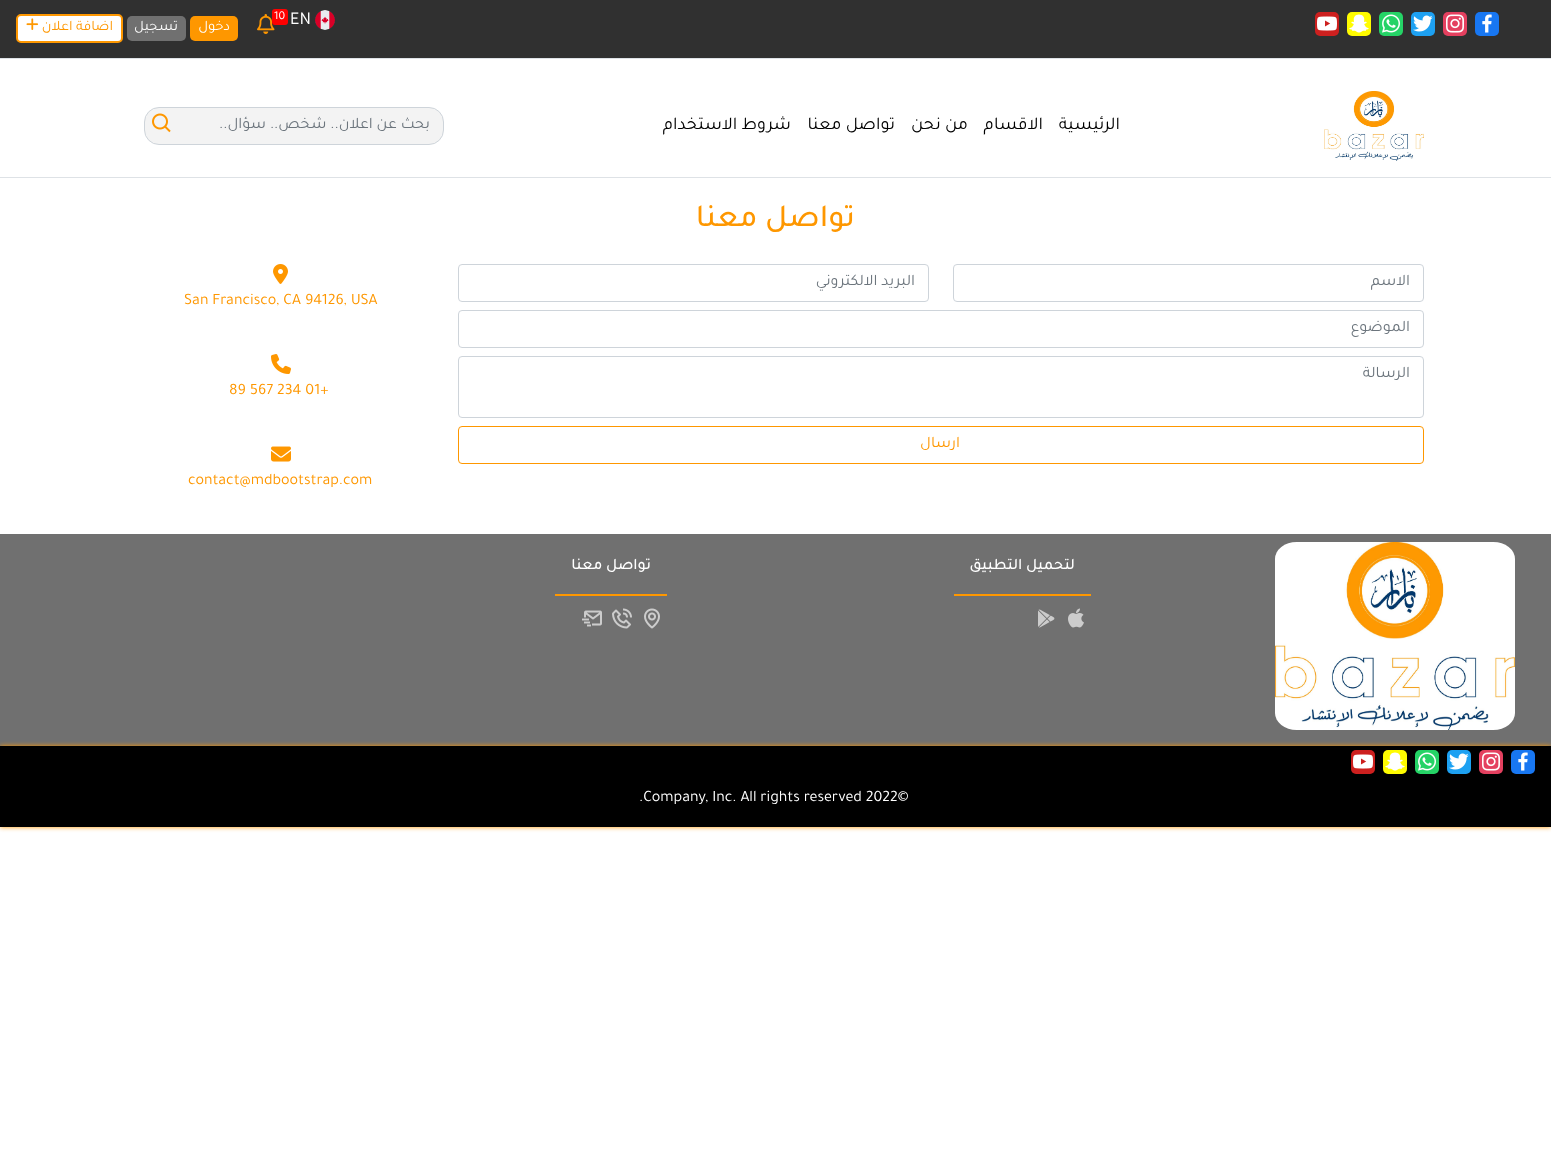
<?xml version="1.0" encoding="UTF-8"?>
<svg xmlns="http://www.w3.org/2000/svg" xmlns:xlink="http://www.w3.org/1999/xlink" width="1551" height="1169">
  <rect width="100%" height="100%" fill="#ffffff" />
  <rect width="1551" height="58" fill="#303030" />
  <rect y="58" width="1551" height="1" fill="#dee2e6" />
  <rect x="1475" y="12" width="24" height="24" rx="5" fill="#1877f2" />
  <image x="1482" y="14" width="10" height="19" xlink:href="image1.png" />
  <rect x="1443" y="12" width="24" height="24" rx="5" fill="#e4405f" />
  <image x="1446" y="14" width="18" height="19" xlink:href="image2.png" />
  <rect x="1411" y="12" width="24" height="24" rx="5" fill="#1da1f2" />
  <image x="1413" y="15" width="20" height="17" xlink:href="image3.png" />
  <rect x="1379" y="12" width="24" height="24" rx="5" fill="#25d366" />
  <image x="1382" y="14" width="18" height="19" xlink:href="image4.png" />
  <rect x="1347" y="12" width="24" height="24" rx="5" fill="#fffc00" />
  <image x="1349" y="14" width="20" height="19" xlink:href="image5.png" />
  <rect x="1315" y="12" width="24" height="24" rx="5" fill="#cd201f" />
  <image x="1317" y="16" width="20" height="15" xlink:href="image6.png" />
  <image x="315" y="10" width="20" height="20" xlink:href="image7.png" />
  <image x="257" y="14" width="18" height="20" xlink:href="image8.png" />
  <rect x="272" y="9" width="16" height="16" rx="3" fill="#ff0000" />
  <rect x="190" y="16" width="48" height="25" rx="5" fill="#fe9700" />
  <rect x="127" y="16" width="59" height="25" rx="5" fill="#707070" />
  <rect x="17" y="15" width="105" height="27" rx="4" fill="#ffffff" stroke="#fe9700" stroke-width="2" />
  <image x="26" y="18" width="13" height="12" xlink:href="image9.png" />
  <rect y="177" width="1551" height="1" fill="#dee2e6" />
  <image x="1324" y="91" width="100" height="70" xlink:href="image10.png" />
  <rect x="144.5" y="107.5" width="299" height="37" rx="14.5" fill="#f3f3f3" stroke="#ced4da" />
  <image x="152" y="113" width="19" height="20" xlink:href="image11.png" />
  <rect x="953.5" y="264.5" width="470" height="37" rx="3.5" fill="none" stroke="#ced4da" />
  <rect x="458.5" y="264.5" width="470" height="37" rx="3.5" fill="none" stroke="#ced4da" />
  <rect x="458.5" y="310.5" width="965" height="37" rx="3.5" fill="none" stroke="#ced4da" />
  <rect x="458.5" y="356.5" width="965" height="61" rx="3.5" fill="none" stroke="#ced4da" />
  <rect x="458.5" y="426.5" width="965" height="37" rx="3.5" fill="none" stroke="#fe9700" />
  <image x="273" y="264" width="15" height="20" xlink:href="image12.png" />
  <image x="271" y="354" width="20" height="20" xlink:href="image13.png" />
  <image x="271" y="446" width="20" height="16" xlink:href="image14.png" />
  <rect y="534" width="1551" height="212" fill="#707070" />
  <image x="1275" y="542" width="240" height="188" xlink:href="image15.png" />
  <rect x="954" y="594" width="137" height="2" fill="#fe9700" />
  <image x="1068" y="608" width="16" height="20" xlink:href="image16.png" />
  <image x="1038" y="609" width="17" height="19" xlink:href="image17.png" />
  <rect x="555" y="594" width="112" height="2" fill="#fe9700" />
  <image x="644" y="608" width="16" height="21" xlink:href="image18.png" />
  <image x="612" y="608" width="20" height="21" xlink:href="image19.png" />
  <image x="582" y="610" width="20" height="17" xlink:href="image20.png" />
  <rect y="746" width="1551" height="81" fill="#fe9700" filter="blur(2.5px)" />
  <rect y="746" width="1551" height="81" fill="#000000" />
  <rect x="1511" y="750" width="24" height="24" rx="5" fill="#1877f2" />
  <image x="1518" y="752" width="10" height="19" xlink:href="image1.png" />
  <rect x="1479" y="750" width="24" height="24" rx="5" fill="#e4405f" />
  <image x="1482" y="752" width="18" height="19" xlink:href="image2.png" />
  <rect x="1447" y="750" width="24" height="24" rx="5" fill="#1da1f2" />
  <image x="1449" y="753" width="20" height="17" xlink:href="image3.png" />
  <rect x="1415" y="750" width="24" height="24" rx="5" fill="#25d366" />
  <image x="1418" y="752" width="18" height="19" xlink:href="image4.png" />
  <rect x="1383" y="750" width="24" height="24" rx="5" fill="#fffc00" />
  <image x="1385" y="752" width="20" height="19" xlink:href="image5.png" />
  <rect x="1351" y="750" width="24" height="24" rx="5" fill="#cd201f" />
  <image x="1353" y="754" width="20" height="15" xlink:href="image6.png" />
  <text x="290" y="24" style="font-family: Tajawal; font-size: 18px; fill: #ffffff">EN</text>
  <text x="274" y="19" style="font-family: Tajawal; font-size: 12px; fill: #ffffff">10</text>
  <text x="230" y="30" style="font-family: Tajawal; font-size: 14.5px; direction: rtl; fill: #ffffff">دخول</text>
  <text x="178" y="30" style="font-family: Tajawal; font-size: 14.5px; direction: rtl; fill: #ffffff">تسجيل</text>
  <text x="113" y="30" style="font-family: Tajawal; font-size: 14.5px; direction: rtl; fill: #fe9700">اضافة اعلان</text>
  <text x="1120" y="129" style="font-family: Tajawal; font-size: 18px; direction: rtl; fill: #000000">الرئيسية</text>
  <text x="1043" y="129" style="font-family: Tajawal; font-size: 18px; direction: rtl; fill: #000000">الاقسام</text>
  <text x="968" y="129" style="font-family: Tajawal; font-size: 18px; direction: rtl; fill: #000000">من نحن</text>
  <text x="895" y="129" style="font-family: Tajawal; font-size: 18px; direction: rtl; fill: #000000">تواصل معنا</text>
  <text x="791" y="129" style="font-family: Tajawal; font-size: 18px; direction: rtl; fill: #000000">شروط الاستخدام</text>
  <text x="430" y="128" style="font-family: Tajawal; font-size: 16px; direction: rtl; fill: #6c757d">بحث عن اعلان.. شخص.. سؤال..</text>
  <text x="855" y="226" style="font-family: Tajawal; font-size: 32px; font-weight: 500; direction: rtl; fill: #fe9700">تواصل معنا</text>
  <text x="1410" y="285" style="font-family: Tajawal; font-size: 16px; direction: rtl; fill: #6c757d">الاسم</text>
  <text x="915" y="285" style="font-family: Tajawal; font-size: 16px; direction: rtl; fill: #6c757d">البريد الالكتروني</text>
  <text x="1410" y="331" style="font-family: Tajawal; font-size: 16px; direction: rtl; fill: #6c757d">الموضوع</text>
  <text x="1410" y="377" style="font-family: Tajawal; font-size: 16px; direction: rtl; fill: #6c757d">الرسالة</text>
  <text x="960" y="447" style="font-family: Tajawal; font-size: 16px; direction: rtl; fill: #fe9700">ارسال</text>
  <text x="184" y="304" style="font-family: Tajawal; font-size: 16px; fill: #fe9700">San Francisco, CA 94126, USA</text>
  <text x="229" y="394" style="font-family: Tajawal; font-size: 16px; fill: #fe9700">89 567 234 01+</text>
  <text x="188" y="484" style="font-family: Tajawal; font-size: 16px; fill: #fe9700">contact@mdbootstrap.com</text>
  <text x="1075" y="569" style="font-family: Tajawal; font-size: 16px; font-weight: 500; direction: rtl; fill: #ffffff">لتحميل التطبيق</text>
  <text x="651" y="569" style="font-family: Tajawal; font-size: 16px; font-weight: 500; direction: rtl; fill: #ffffff">تواصل معنا</text>
  <text x="639" y="801" style="font-family: Tajawal; font-size: 16px; fill: #ffffff">.Company, Inc. All rights reserved 2022©</text>
</svg>
